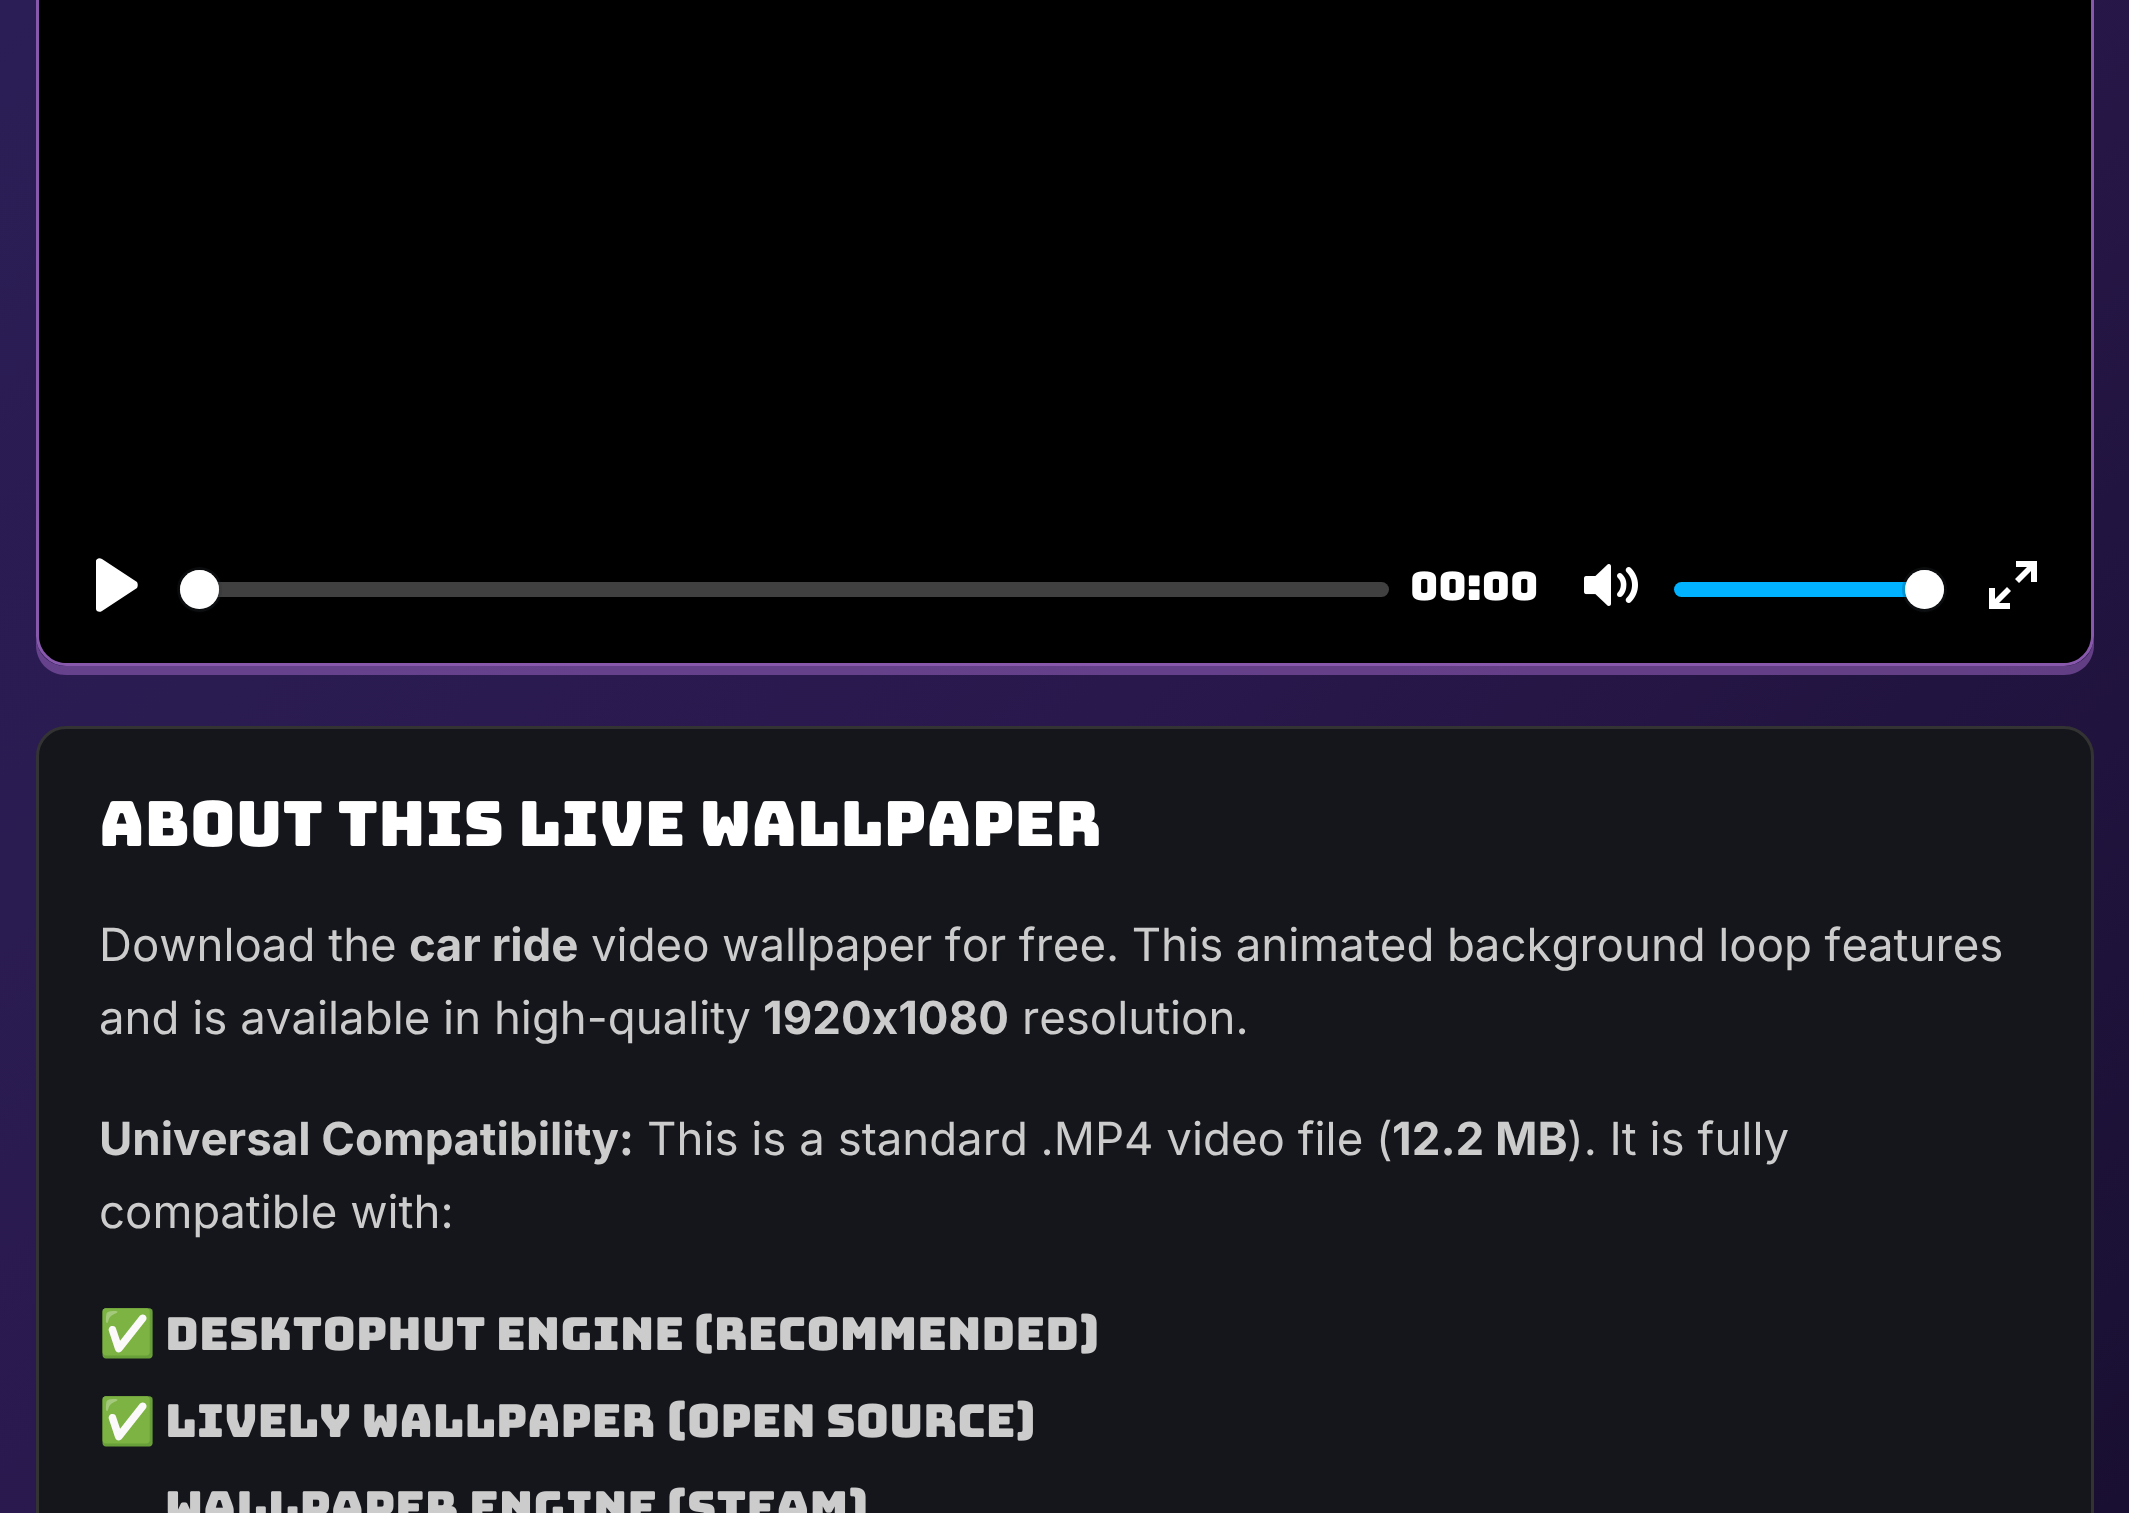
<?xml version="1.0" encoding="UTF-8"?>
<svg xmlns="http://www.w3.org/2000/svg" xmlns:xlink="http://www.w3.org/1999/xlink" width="2129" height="1513">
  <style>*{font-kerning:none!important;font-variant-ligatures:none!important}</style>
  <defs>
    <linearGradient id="g1" gradientUnits="userSpaceOnUse" x1="154" y1="-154" x2="1976" y2="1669"><stop offset="0" stop-color="#2b1e56" /><stop offset="0.5" stop-color="#29184c" /><stop offset="1" stop-color="#190f32" /></linearGradient>
    <linearGradient id="g2" gradientUnits="userSpaceOnUse" x1="1065" y1="438" x2="1065" y2="663"><stop offset="0" stop-color="#000000" stop-opacity="0" /><stop offset="1" stop-color="#000000" stop-opacity="0.75" /></linearGradient>
  </defs>
  <rect width="100%" height="100%" fill="#ffffff" />
  <rect width="2129" height="1513" fill="url(#g1)" />
  <path d="M 36 636 v 9 c 0 17 13 30 30 30 h 1998 c 17 0 30 -13 30 -30 v -9 c 0 17 -13 30 -30 30 h -1998 c -17 0 -30 -13 -30 -30 z" fill="#8858ad" fill-opacity="0.64" />
  <path d="M 37.5 -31.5 h 2055 v 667.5 c 0 15.5 -13 28.5 -28.5 28.5 h -1998 c -15.5 0 -28.5 -13 -28.5 -28.5 z" fill="#000000" stroke="#8858ad" stroke-width="3" />
  <path d="M 39 -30 h 2052 v 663 c 0 16.5 -13.5 30 -30 30 h -1992 c -16.5 0 -30 -13.5 -30 -30 z" fill="#000000" />
  <image x="177" y="567" width="1770" height="45" xlink:href="image1.png" />
  <path d="M 39 438 h 2052 v 195 c 0 16.5 -13.5 30 -30 30 h -1992 c -16.5 0 -30 -13.5 -30 -30 z" fill="url(#g2)" />
  <path d="M 137 582 l -35 -23 c -3 -2 -6 0 -6 2 v 48 c 0 2 3 4 6 2 l 35 -23 c 1 -2 1 -4 0 -6 z" fill="#ffffff" />
  <rect x="180" y="582" width="1209" height="15" rx="7.5" fill="#ffffff" fill-opacity="0.25" />
  <circle cx="199.5" cy="589.5" r="21" fill="none" stroke="#23282f" stroke-opacity="0.2" stroke-width="3" />
  <rect x="180" y="573" width="39" height="39" rx="19.5" fill="#23282f" fill-opacity="0.15" filter="blur(1.5px)" />
  <circle cx="199.5" cy="589.5" r="19.5" fill="#ffffff" />
  <image x="1412" y="571" width="125" height="30" xlink:href="image2.png" />
  <image x="1584" y="564" width="54" height="42" xlink:href="image3.png" />
  <rect x="1674" y="582" width="270" height="15" rx="7.5" fill="#00b2ff" />
  <circle cx="1924.5" cy="589.5" r="21" fill="none" stroke="#23282f" stroke-opacity="0.2" stroke-width="3" />
  <rect x="1905" y="573" width="39" height="39" rx="19.5" fill="#23282f" fill-opacity="0.15" filter="blur(1.5px)" />
  <circle cx="1924.5" cy="589.5" r="19.5" fill="#ffffff" />
  <path d="M 2016 567 h 11 l -12 12 l 4 4 l 12 -12 v 11 h 6 v -21 h -21 z m -9 20 l -12 12 v -11 h -6 v 21 h 21 v -6 h -11 l 12 -12 z" fill="#ffffff" />
  <rect x="37.5" y="727.5" width="2055" height="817" rx="28.5" fill="#15161b" stroke="#333333" stroke-width="3" />
  <image x="102" y="800" width="997" height="47" xlink:href="image4.png" />
  <image x="168" y="1316" width="514" height="35" xlink:href="image5.png" />
  <image x="696" y="1313" width="401" height="41" xlink:href="image6.png" />
  <image x="168" y="1404" width="486" height="33" xlink:href="image7.png" />
  <image x="669" y="1400" width="364" height="41" xlink:href="image8.png" />
  <image x="167" y="1491" width="488" height="22" xlink:href="image9.png" />
  <image x="669" y="1487" width="197" height="26" xlink:href="image10.png" />
  <text x="99" y="961" style="font-family: Inter; font-size: 45.6px; fill: #cccccc">Download the</text>
  <text x="409" y="961" style="font-family: Inter; font-size: 45.6px; font-weight: bold; fill: #cccccc">car ride</text>
  <text x="591" y="961" word-spacing="-0.25" style="font-family: Inter; font-size: 45.6px; fill: #cccccc">video wallpaper for free. This animated background loop features</text>
  <text x="99" y="1034" style="font-family: Inter; font-size: 45.6px; fill: #cccccc">and is available in high-quality</text>
  <text x="763" y="1034" style="font-family: Inter; font-size: 45.6px; font-weight: bold; fill: #cccccc">1920x1080</text>
  <text x="1022" y="1034" style="font-family: Inter; font-size: 45.6px; fill: #cccccc">resolution.</text>
  <text x="99" y="1155" style="font-family: Inter; font-size: 45.6px; font-weight: bold; fill: #cccccc">Universal Compatibility:</text>
  <text x="647" y="1155" style="font-family: Inter; font-size: 45.6px; fill: #cccccc">This is a standard .MP4 video file (</text>
  <text x="1392" y="1155" style="font-family: Inter; font-size: 45.6px; font-weight: bold; fill: #cccccc">12.2 MB</text>
  <text x="1567" y="1155" style="font-family: Inter; font-size: 45.6px; fill: #cccccc">). It is fully</text>
  <text x="99" y="1228" style="font-family: Inter; font-size: 45.6px; fill: #cccccc">compatible with:</text>
  <text x="99" y="1349" style="font-family: Noto Color Emoji; font-size: 45.6px; fill: #cccccc">✅</text>
  <text x="99" y="1437" style="font-family: Noto Color Emoji; font-size: 45.6px; fill: #cccccc">✅</text>
</svg>
